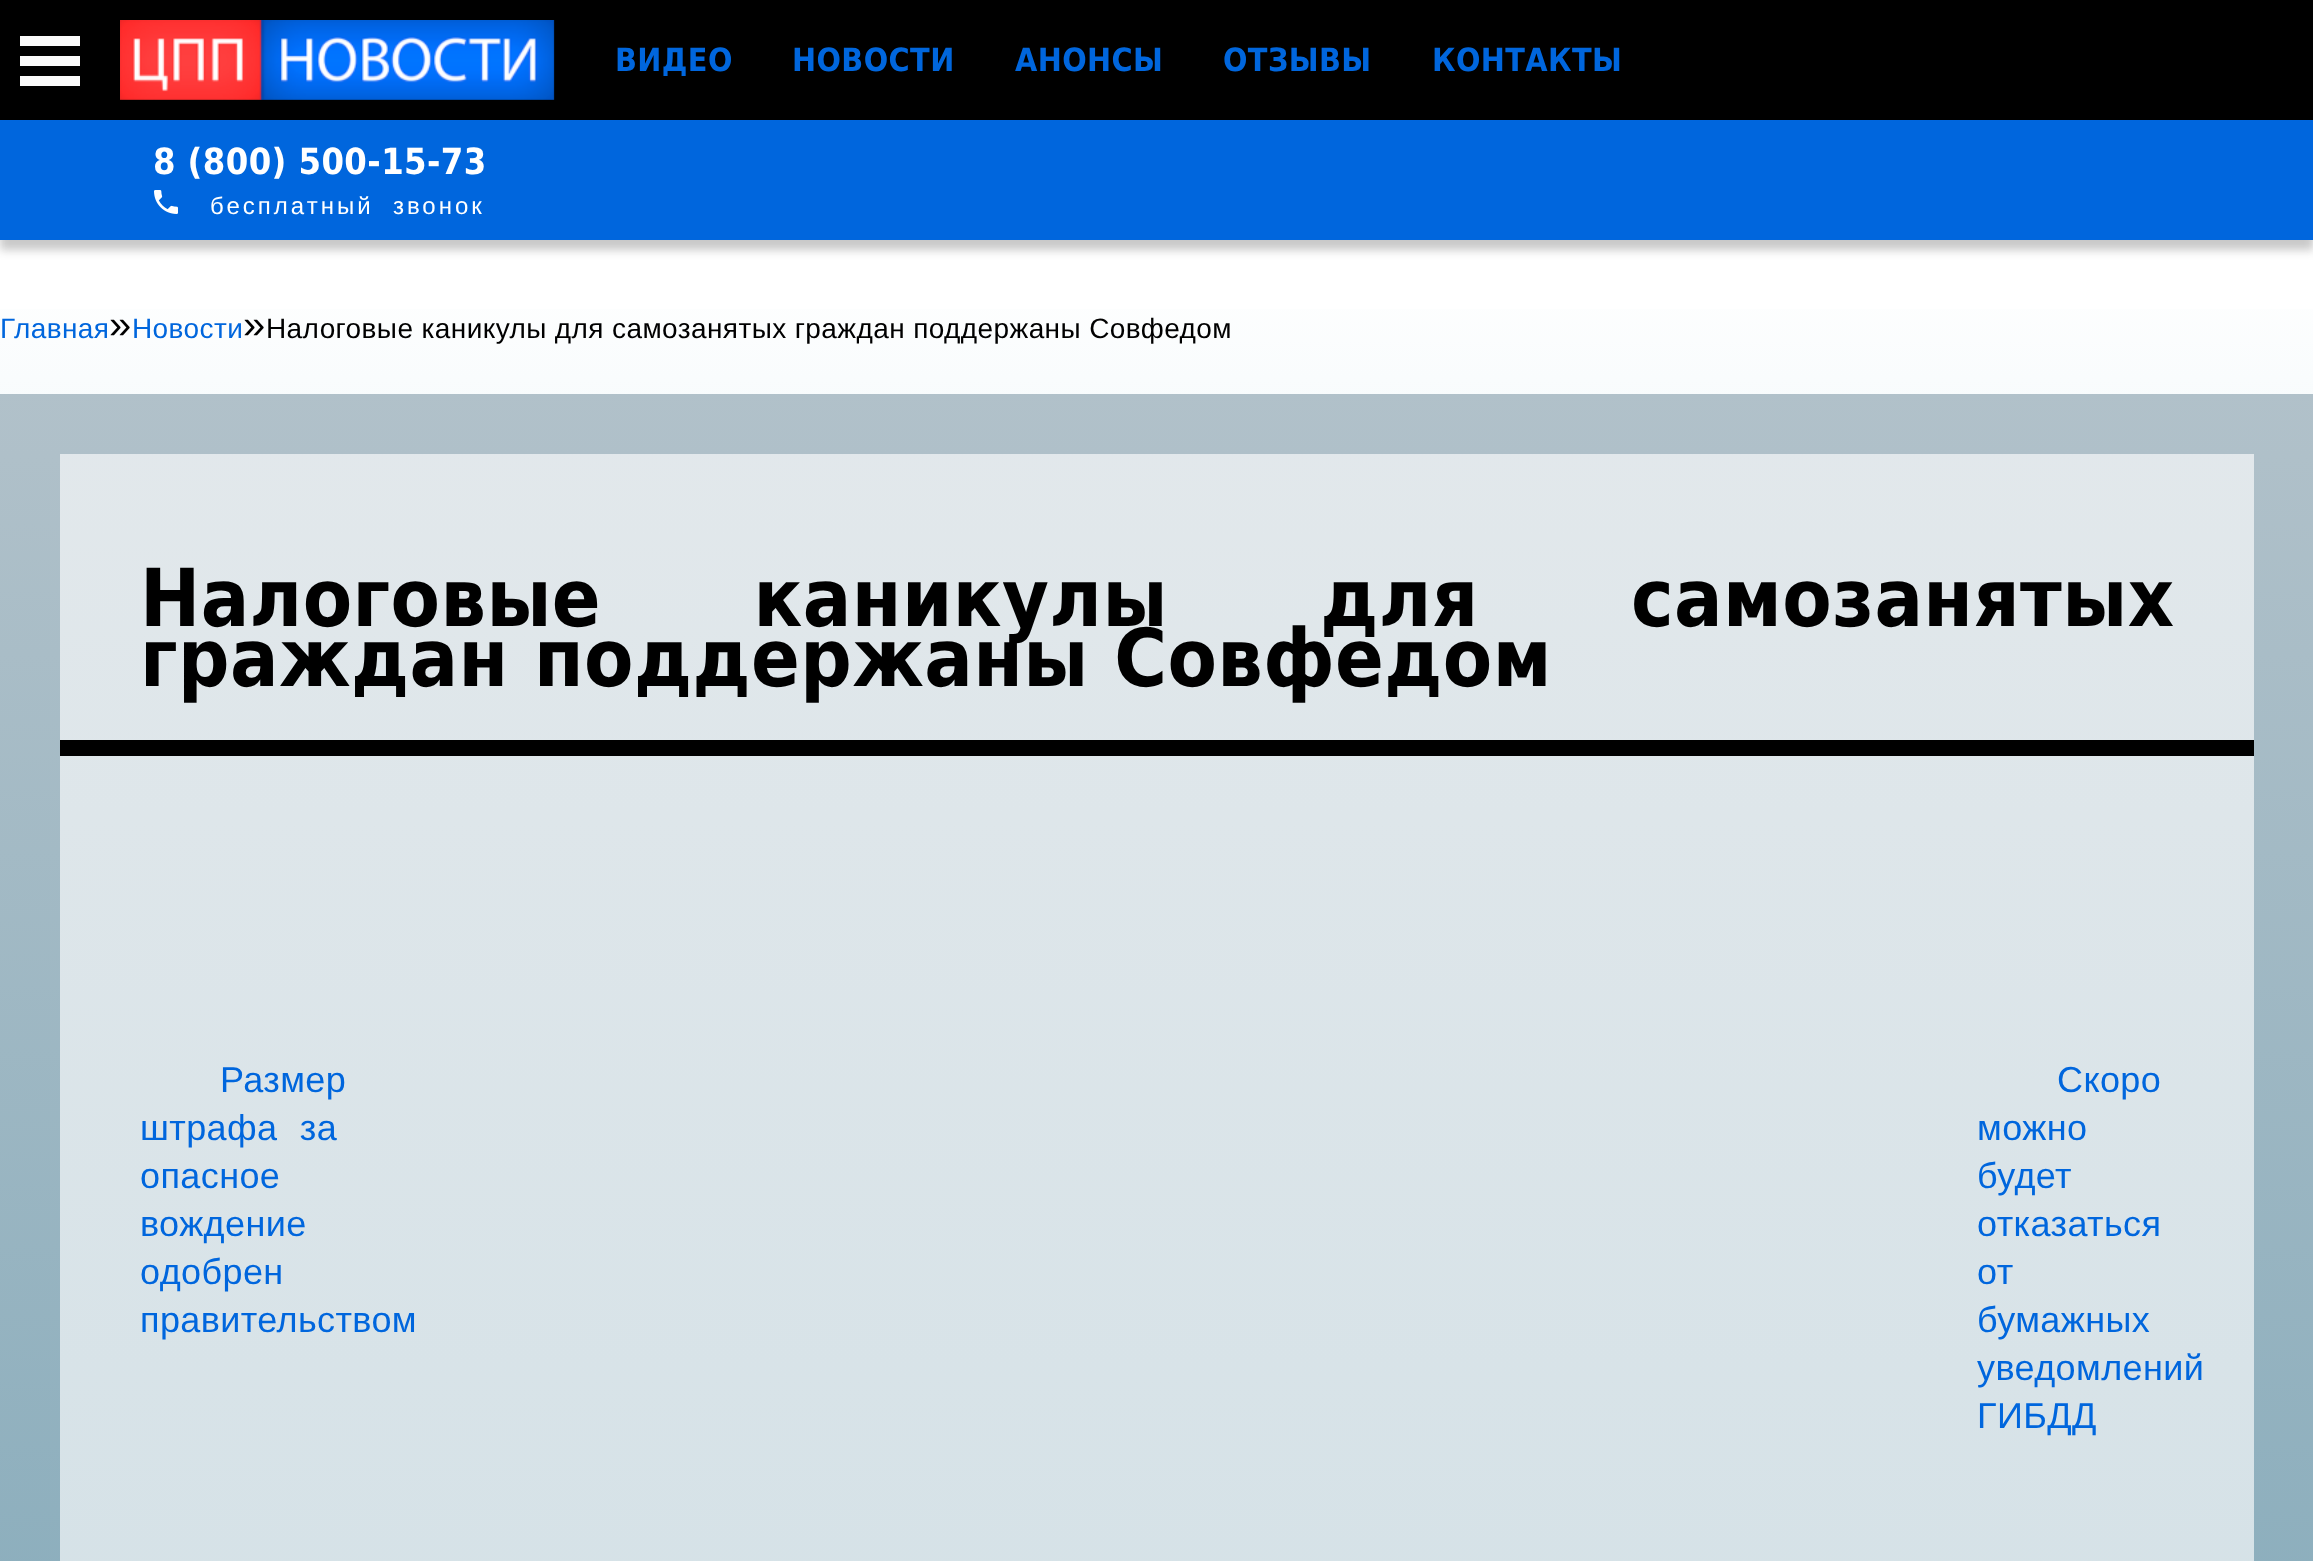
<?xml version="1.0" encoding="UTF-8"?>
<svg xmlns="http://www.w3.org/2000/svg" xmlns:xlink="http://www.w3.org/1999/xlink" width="2313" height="1561">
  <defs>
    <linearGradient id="g1" gradientUnits="userSpaceOnUse" x1="1157" y1="260" x2="1157" y2="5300"><stop offset="0" stop-color="#ffffff" /><stop offset="1" stop-color="#007ea8" /></linearGradient>
    <linearGradient id="g2" gradientUnits="userSpaceOnUse" x1="1157" y1="260" x2="1157" y2="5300"><stop offset="0" stop-color="#b5c3cb" /><stop offset="1" stop-color="#1c7697" /></linearGradient>
    <linearGradient id="g3" gradientUnits="userSpaceOnUse" x1="1157" y1="260" x2="1157" y2="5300"><stop offset="0" stop-color="#e4e9ec" /><stop offset="1" stop-color="#adceda" /></linearGradient>
  </defs>
  <rect width="100%" height="100%" fill="#ffffff" />
  <rect y="130" width="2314" height="120" fill="#222222" fill-opacity="0.25" filter="blur(5px)" />
  <rect width="2313" height="120" fill="#000000" />
  <rect x="20" y="36" width="60" height="10" fill="#fafafa" />
  <rect x="20" y="56" width="60" height="10" fill="#fafafa" />
  <rect x="20" y="76" width="60" height="10" fill="#fafafa" />
  <image x="120" y="20" width="435" height="80" xlink:href="image1.png" />
  <rect y="120" width="2313" height="120" fill="#0066dd" />
  <image x="154" y="190" width="24" height="24" xlink:href="image2.png" />
  <rect y="309" width="2313" height="85" fill="url(#g1)" />
  <rect y="394" width="2313" height="1167" fill="url(#g2)" />
  <rect x="60" y="756" width="2194" height="805" fill="url(#g3)" />
  <rect x="60" y="454" width="2194" height="286" fill="url(#g3)" />
  <rect x="60" y="740" width="2194" height="16" fill="#000000" />
  <text x="615" y="71" style="font-family: DejaVu Sans; font-size: 32px; font-weight: bold; letter-spacing: 0.4px; fill: #0066dd">ВИДЕО</text>
  <text x="792" y="71" style="font-family: DejaVu Sans; font-size: 32px; font-weight: bold; letter-spacing: 0.4px; fill: #0066dd">НОВОСТИ</text>
  <text x="1015" y="71" style="font-family: DejaVu Sans; font-size: 32px; font-weight: bold; letter-spacing: 0.4px; fill: #0066dd">АНОНСЫ</text>
  <text x="1223" y="71" style="font-family: DejaVu Sans; font-size: 32px; font-weight: bold; letter-spacing: 0.4px; fill: #0066dd">ОТЗЫВЫ</text>
  <text x="1432" y="71" style="font-family: DejaVu Sans; font-size: 32px; font-weight: bold; letter-spacing: 0.4px; fill: #0066dd">КОНТАКТЫ</text>
  <text x="153" y="174" style="font-family: DejaVu Sans; font-size: 36px; font-weight: bold; letter-spacing: 0.4px; fill: #ffffff">8 (800) 500-15-73</text>
  <text x="210" y="214" style="font-family: Liberation Sans; font-size: 24px; letter-spacing: 3px; fill: #ffffff" xml:space="preserve">бесплатный  звонок</text>
  <text x="0" y="338" style="font-family: Liberation Sans; font-size: 28px; letter-spacing: 0.4px; fill: #0066dd">Главная</text>
  <text x="109" y="338" style="font-family: Liberation Sans; font-size: 40px; letter-spacing: 0.4px; fill: #000000">»</text>
  <text x="132" y="338" style="font-family: Liberation Sans; font-size: 28px; letter-spacing: 0.4px; fill: #0066dd">Новости</text>
  <text x="243" y="338" style="font-family: Liberation Sans; font-size: 40px; letter-spacing: 0.4px; fill: #000000">»</text>
  <text x="266" y="338" style="font-family: Liberation Sans; font-size: 28px; letter-spacing: 0.4px; fill: #000000">Налоговые каникулы для самозанятых граждан поддержаны Совфедом</text>
  <text x="140" y="626" word-spacing="127" style="font-family: DejaVu Sans; font-size: 80px; font-weight: bold; letter-spacing: 0.4px; fill: #000000">Налоговые каникулы для самозанятых</text>
  <text x="140" y="686" style="font-family: DejaVu Sans; font-size: 80px; font-weight: bold; letter-spacing: 0.4px; fill: #000000">граждан поддержаны Совфедом</text>
  <text x="220" y="1092" style="font-family: Liberation Sans; font-size: 36px; letter-spacing: 0.4px; fill: #0066dd">Размер</text>
  <text x="140" y="1140" word-spacing="12" style="font-family: Liberation Sans; font-size: 36px; letter-spacing: 0.4px; fill: #0066dd">штрафа за</text>
  <text x="140" y="1188" style="font-family: Liberation Sans; font-size: 36px; letter-spacing: 0.4px; fill: #0066dd">опасное</text>
  <text x="140" y="1236" style="font-family: Liberation Sans; font-size: 36px; letter-spacing: 0.4px; fill: #0066dd">вождение</text>
  <text x="140" y="1284" style="font-family: Liberation Sans; font-size: 36px; letter-spacing: 0.4px; fill: #0066dd">одобрен</text>
  <text x="140" y="1332" style="font-family: Liberation Sans; font-size: 36px; letter-spacing: 0.4px; fill: #0066dd">правительством</text>
  <text x="2057" y="1092" style="font-family: Liberation Sans; font-size: 36px; letter-spacing: 0.4px; fill: #0066dd">Скоро</text>
  <text x="1977" y="1140" style="font-family: Liberation Sans; font-size: 36px; letter-spacing: 0.4px; fill: #0066dd">можно</text>
  <text x="1977" y="1188" style="font-family: Liberation Sans; font-size: 36px; letter-spacing: 0.4px; fill: #0066dd">будет</text>
  <text x="1977" y="1236" style="font-family: Liberation Sans; font-size: 36px; letter-spacing: 0.4px; fill: #0066dd">отказаться</text>
  <text x="1977" y="1284" style="font-family: Liberation Sans; font-size: 36px; letter-spacing: 0.4px; fill: #0066dd">от</text>
  <text x="1977" y="1332" style="font-family: Liberation Sans; font-size: 36px; letter-spacing: 0.4px; fill: #0066dd">бумажных</text>
  <text x="1977" y="1380" style="font-family: Liberation Sans; font-size: 36px; letter-spacing: 0.4px; fill: #0066dd">уведомлений</text>
  <text x="1977" y="1428" style="font-family: Liberation Sans; font-size: 36px; letter-spacing: 0.4px; fill: #0066dd">ГИБДД</text>
</svg>
